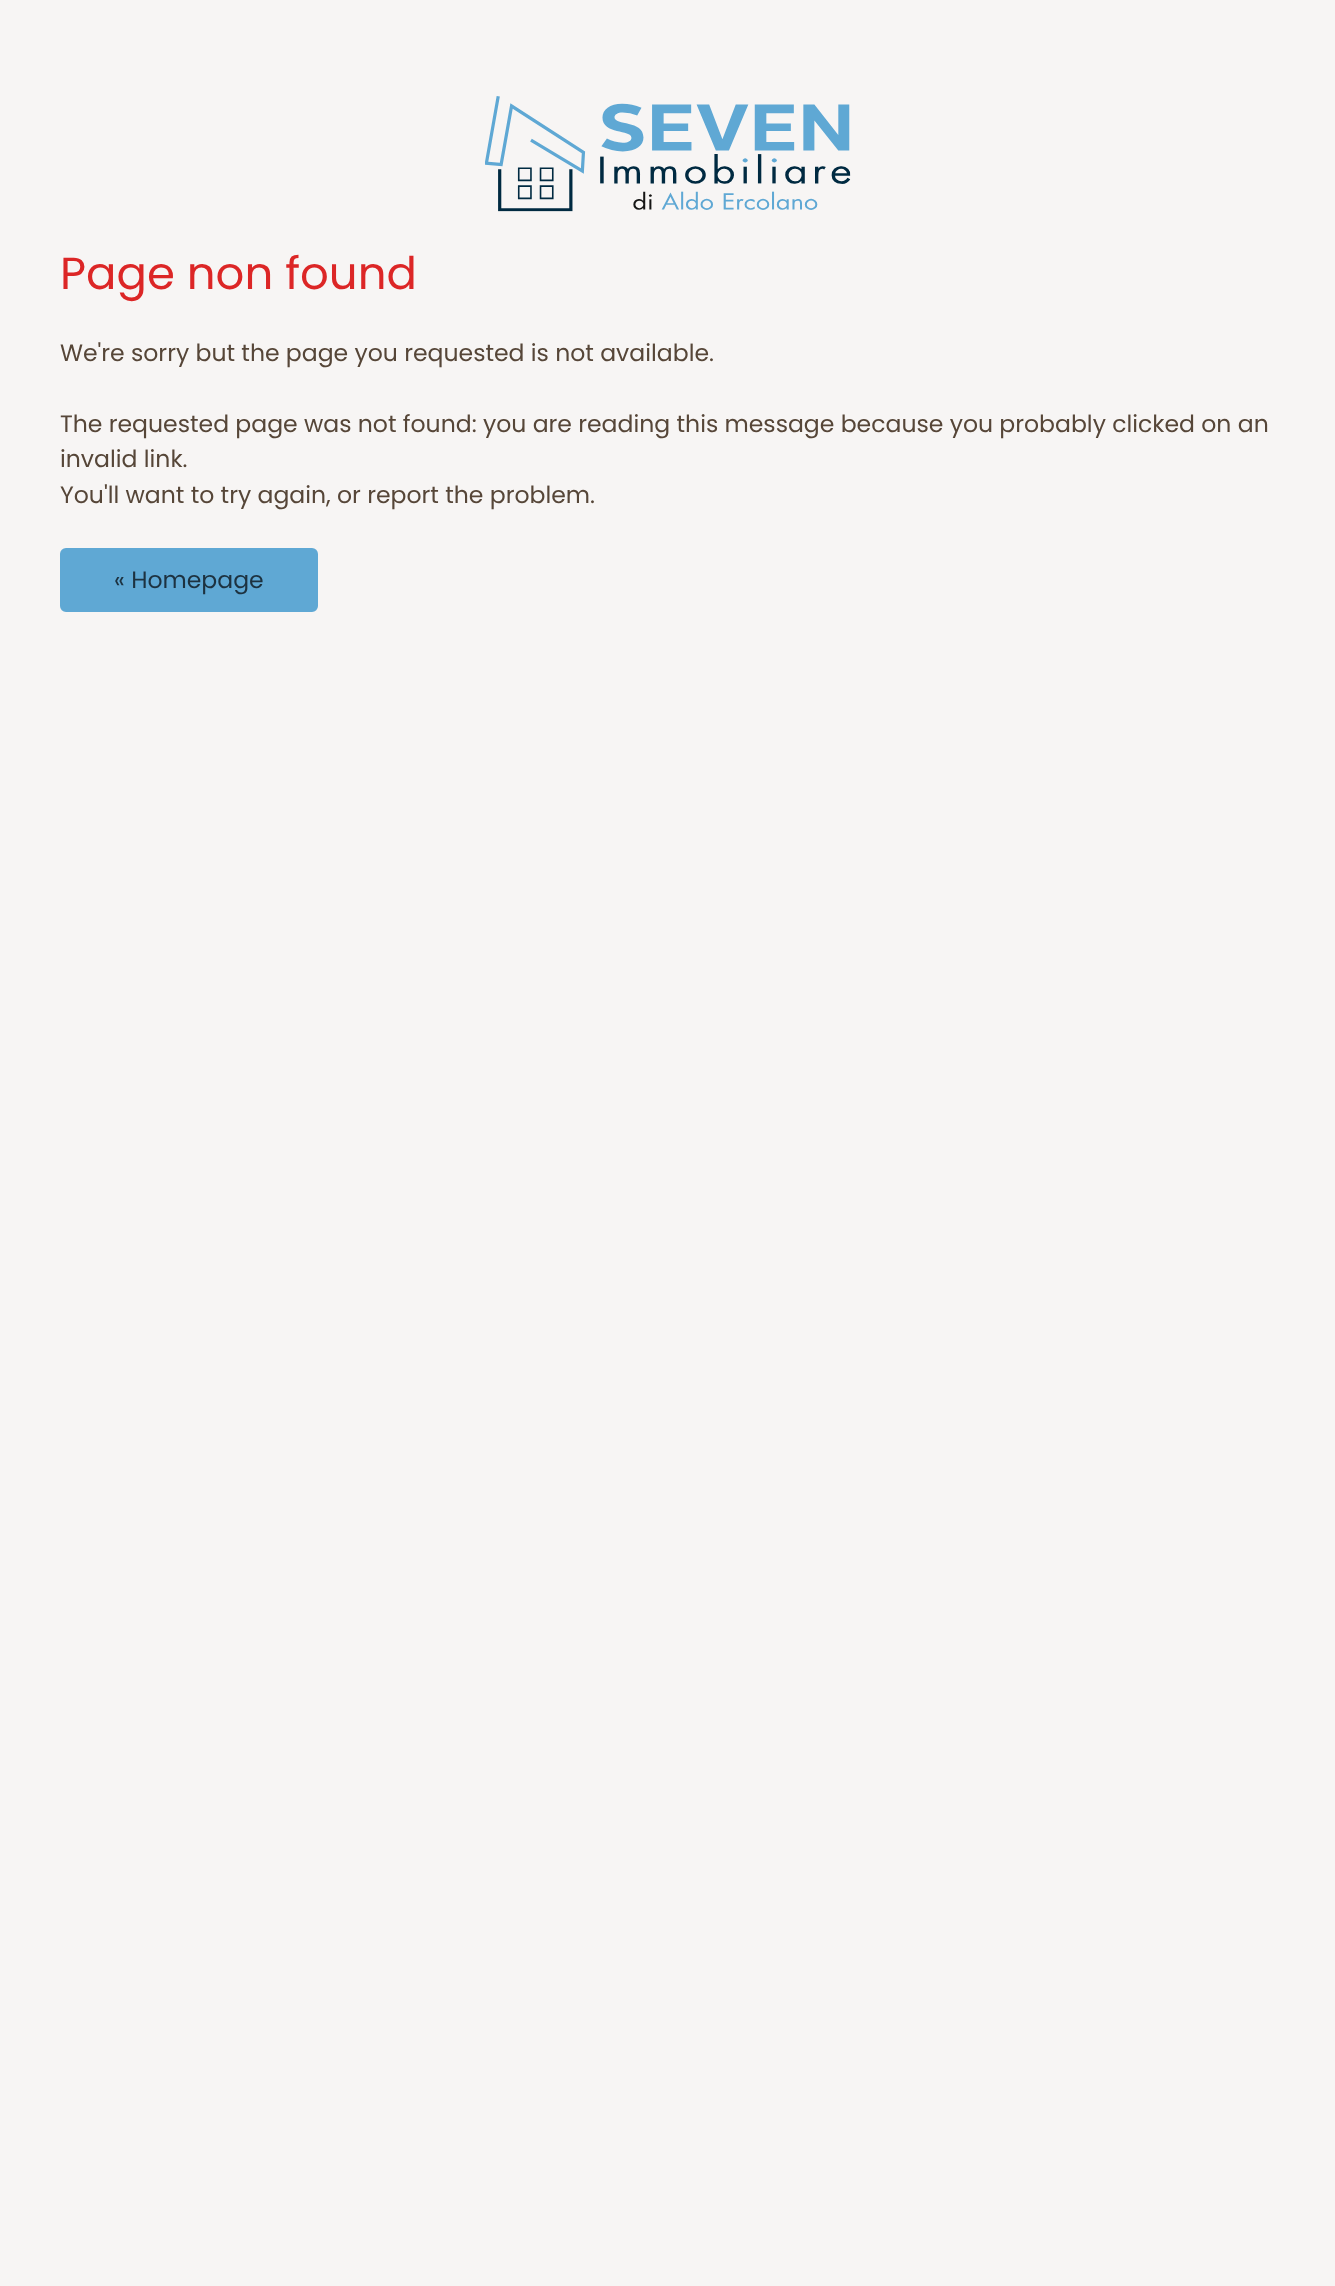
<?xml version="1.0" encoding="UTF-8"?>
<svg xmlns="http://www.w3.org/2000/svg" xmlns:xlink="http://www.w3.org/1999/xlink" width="1335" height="2286">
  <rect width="100%" height="100%" fill="#f7f5f4" />
  <image x="485" y="96" width="366" height="116" xlink:href="image1.png" />
  <rect x="61" y="549" width="256" height="62" rx="5" fill="#5fa8d4" stroke="#5fa8d4" stroke-width="2" />
  <text x="60" y="289" style="font-family: Poppins; font-size: 45px; fill: #dc2626">Page non found</text>
  <text x="60" y="361" style="font-family: Poppins; font-size: 23.55px; fill: #564638">We're sorry but the page you requested is not available.</text>
  <text x="60" y="432" style="font-family: Poppins; font-size: 23.55px; fill: #564638">The requested page was not found: you are reading this message because you probably clicked on an</text>
  <text x="60" y="467" style="font-family: Poppins; font-size: 23.55px; fill: #564638">invalid link.</text>
  <text x="60" y="503" style="font-family: Poppins; font-size: 23.55px; fill: #564638">You'll want to try again, or report the problem.</text>
  <text x="114" y="588" style="font-family: Poppins; font-size: 23.55px; fill: #1d3240">« Homepage</text>
</svg>
